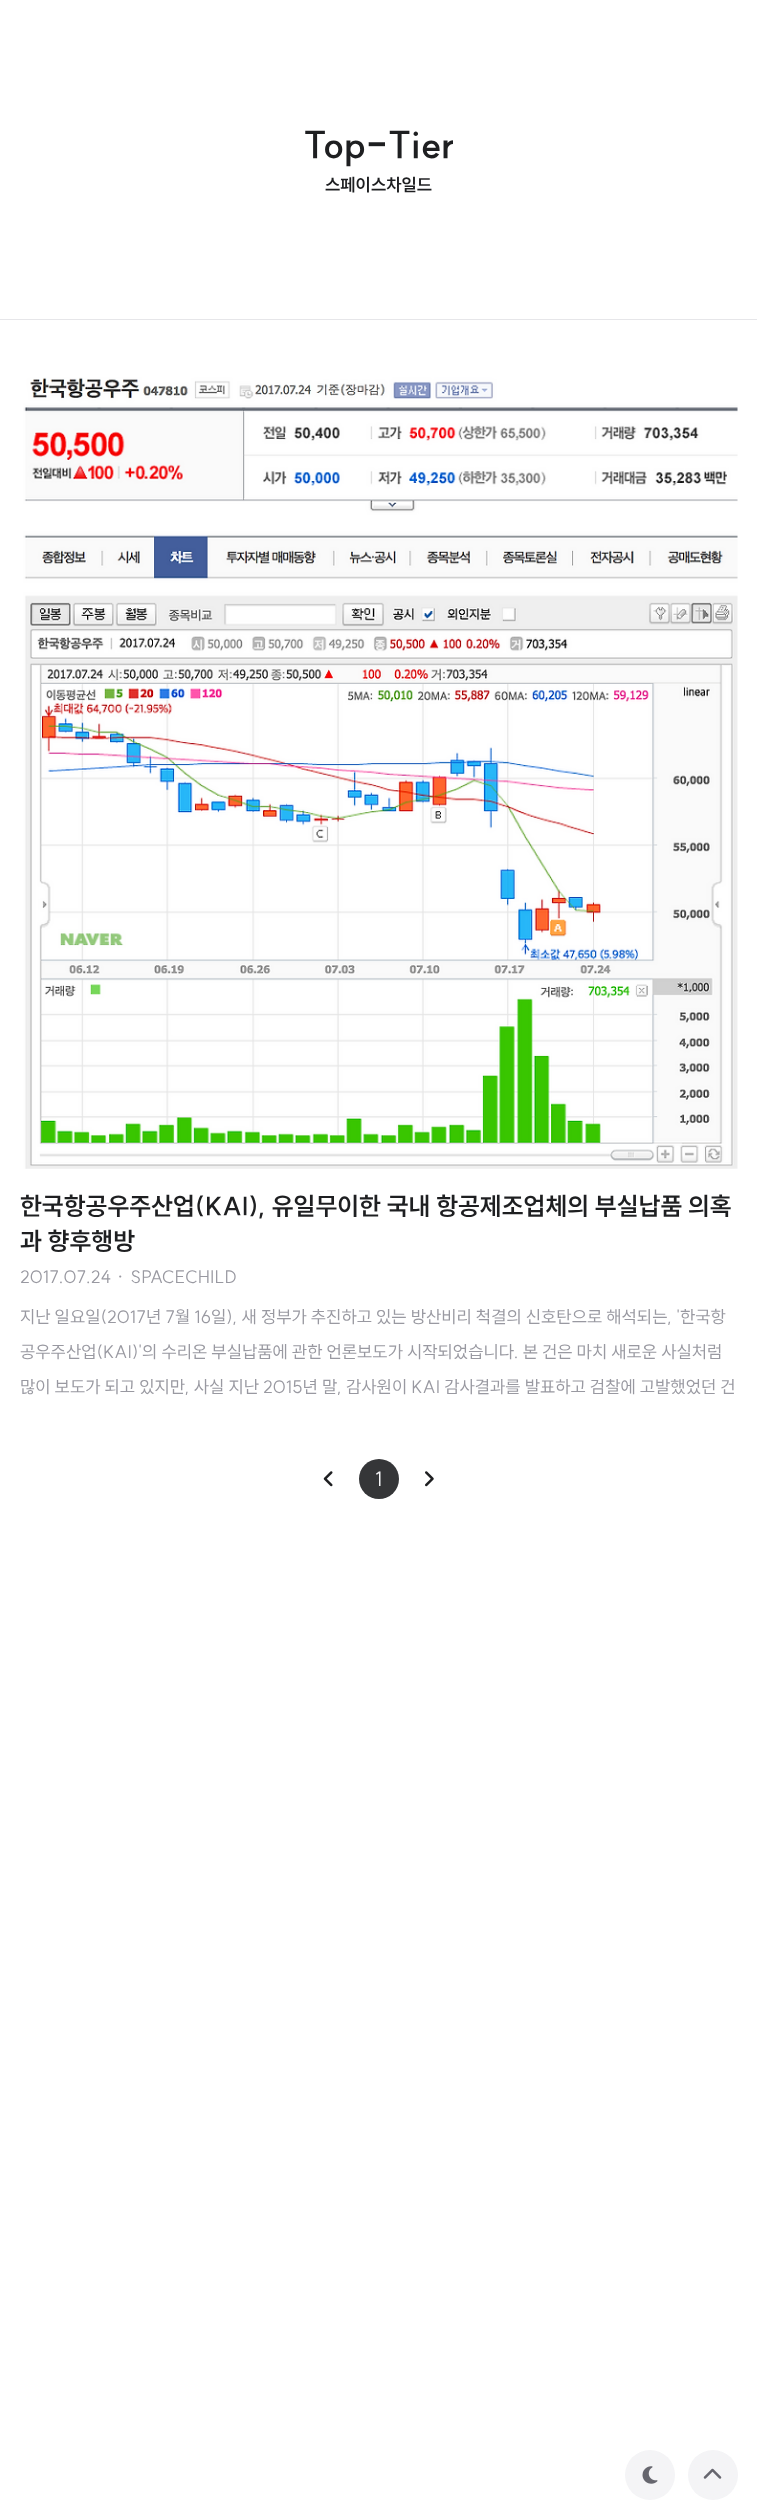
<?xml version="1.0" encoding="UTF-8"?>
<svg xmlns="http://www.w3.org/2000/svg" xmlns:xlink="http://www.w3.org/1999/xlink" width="757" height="2515">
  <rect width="100%" height="100%" fill="#ffffff" />
  <rect y="319" width="757" height="1" fill="#e6e6e9" />
  <image x="23" y="377" width="715" height="792" xlink:href="image1.png" />
  <image x="323" y="1471" width="10" height="16" xlink:href="image2.png" />
  <circle cx="379" cy="1479" r="20" fill="#353638" />
  <image x="425" y="1471" width="9" height="16" xlink:href="image3.png" />
  <circle cx="650" cy="2475" r="25" fill="#f4f4f6" />
  <image x="642" y="2466" width="16" height="18" xlink:href="image4.png" />
  <circle cx="713" cy="2475" r="25" fill="#f4f4f6" />
  <image x="703" y="2468" width="19" height="11" xlink:href="image5.png" />
  <text x="303" y="158" style="font-family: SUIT; font-size: 37.5px; font-weight: bold; fill: #1e1f21">Top-Tier</text>
  <text x="325" y="191" style="font-family: SUIT; font-size: 17.5px; font-weight: bold; fill: #1e1f21">스페이스차일드</text>
  <text x="20" y="1215" style="font-family: SUIT; font-size: 25px; font-weight: bold; fill: #1e1f21">한국항공우주산업(KAI), 유일무이한 국내 항공제조업체의 부실납품 의혹</text>
  <text x="20" y="1250" style="font-family: SUIT; font-size: 25px; font-weight: bold; fill: #1e1f21">과 향후행방</text>
  <text x="20" y="1283" style="font-family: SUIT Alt; font-size: 17.5px; fill: #9999a1">2017.07.24</text>
  <text x="116" y="1283" style="font-family: SUIT; font-size: 17.5px; fill: #9999a1">·</text>
  <text x="130" y="1283" style="font-family: SUIT; font-size: 17.5px; fill: #9999a1">SPACECHILD</text>
  <text x="20" y="1323" style="font-family: SUIT Alt; font-size: 17.5px; fill: #9999a1">지난 일요일(2017년 7월 16일), 새 정부가 추진하고 있는 방산비리 척결의 신호탄으로 해석되는, '한국항</text>
  <text x="20" y="1358" style="font-family: SUIT; font-size: 17.5px; fill: #9999a1">공우주산업(KAI)'의 수리온 부실납품에 관한 언론보도가 시작되었습니다. 본 건은 마치 새로운 사실처럼</text>
  <text x="20" y="1393" style="font-family: SUIT Alt; font-size: 17.5px; fill: #9999a1">많이 보도가 되고 있지만, 사실 지난 2015년 말, 감사원이 KAI 감사결과를 발표하고 검찰에 고발했었던 건</text>
  <text x="375" y="1486" style="font-family: SUIT; font-size: 20px; fill: #f4f4f6">1</text>
</svg>
